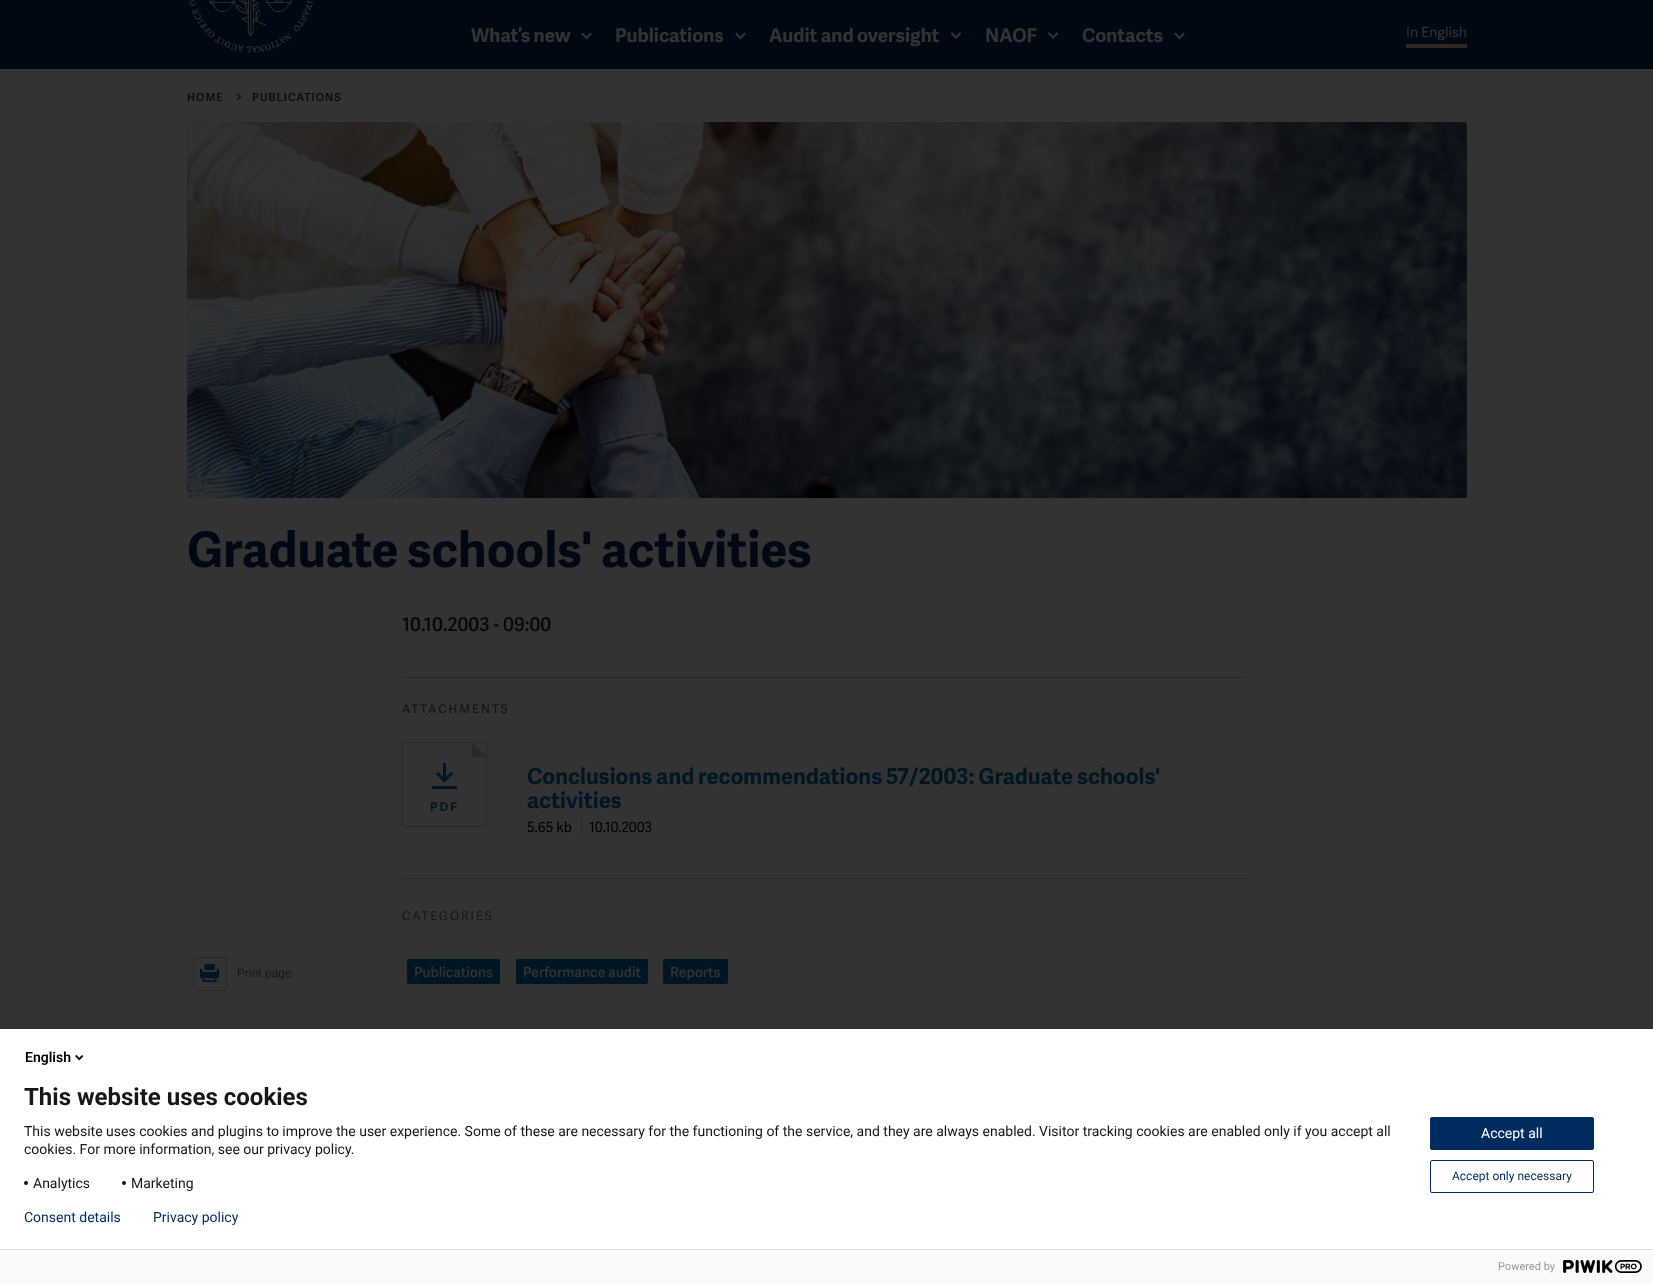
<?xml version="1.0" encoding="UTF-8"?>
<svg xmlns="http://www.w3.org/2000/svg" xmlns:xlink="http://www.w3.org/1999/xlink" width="1653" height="1284">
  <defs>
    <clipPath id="clip1"><rect x="472" y="742" width="15" height="15" /></clipPath>
  </defs>
  <rect width="100%" height="100%" fill="#333333" />
  <rect width="1653" height="69" fill="#000913" />
  <image x="189" y="0" width="125" height="53" xlink:href="image1.png" />
  <path d="M 590.5 34 l -4 4 l -4 -4" fill="none" stroke="#333333" stroke-width="2" stroke-linecap="square" />
  <path d="M 744.5 34 l -4 4 l -4 -4" fill="none" stroke="#333333" stroke-width="2" stroke-linecap="square" />
  <path d="M 960 33.5 l -4 4 l -4 -4" fill="none" stroke="#333333" stroke-width="2" stroke-linecap="square" />
  <path d="M 1057 33.5 l -4 4 l -4 -4" fill="none" stroke="#333333" stroke-width="2" stroke-linecap="square" />
  <path d="M 1183.5 34 l -4 4 l -4 -4" fill="none" stroke="#333333" stroke-width="2" stroke-linecap="square" />
  <rect x="1406" y="44" width="61" height="4" fill="#302728" />
  <path d="M 237.5 94.5 l 3 2.5 l -3 2.5" fill="none" stroke="#27001a" stroke-width="1.3" stroke-linecap="square" />
  <image x="187" y="122" width="1280" height="376" xlink:href="image2.png" />
  <rect x="193.5" y="957.5" width="33" height="33" rx="2.5" fill="none" stroke="#252a2c" />
  <image x="200" y="964" width="20" height="18" xlink:href="image3.png" />
  <rect x="402" y="677" width="845" height="1" fill="#252a2c" />
  <rect x="402.5" y="742.5" width="84" height="84" rx="2.5" fill="none" stroke="#252a2c" />
  <g clip-path="url(#clip1)">
    <path d="M 472 742 l 15 15 c -17.5 0 -15 2.5 -15 -15 z" fill="#252a2c" fill-rule="evenodd" />
  </g>
  <image x="432" y="763" width="25" height="26" xlink:href="image4.png" />
  <rect x="581" y="817" width="1" height="19" fill="#292929" />
  <rect x="402" y="878" width="845" height="1" fill="#252a2c" />
  <rect x="407" y="959" width="93" height="25" rx="2" fill="#001723" />
  <rect x="516" y="959" width="132" height="25" rx="2" fill="#001723" />
  <rect x="663" y="959" width="65" height="25" rx="2" fill="#001723" />
  <rect y="1029" width="1653" height="220" fill="#ffffff" />
  <image x="75" y="1054" width="9" height="7" xlink:href="image5.png" />
  <circle cx="26" cy="1183" r="2" fill="#131313" />
  <circle cx="124" cy="1183" r="2" fill="#131313" />
  <rect x="1430.5" y="1117.5" width="163" height="32" rx="1.5" fill="#002c5f" stroke="#002c5f" />
  <rect x="1430.5" y="1160.5" width="163" height="32" rx="1.5" fill="none" stroke="#002c5f" />
  <rect y="1250" width="1653" height="34" fill="#fafafa" />
  <rect y="1249" width="1653" height="1" fill="#dddddd" />
  <image x="1563" y="1260" width="79" height="13" xlink:href="image6.png" />
  <text x="471" y="42" style="font-family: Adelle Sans; font-size: 19px; font-weight: bold; fill: #333333">What’s new</text>
  <text x="615" y="42" style="font-family: Adelle Sans; font-size: 19px; font-weight: bold; fill: #333333">Publications</text>
  <text x="769" y="42" style="font-family: Adelle Sans; font-size: 19px; font-weight: bold; fill: #333333">Audit and oversight</text>
  <text x="985" y="42" style="font-family: Adelle Sans; font-size: 19px; font-weight: bold; fill: #333333">NAOF</text>
  <text x="1082" y="42" style="font-family: Adelle Sans; font-size: 19px; font-weight: bold; fill: #333333">Contacts</text>
  <text x="1406" y="37" style="font-family: Adelle Sans; font-size: 14px; fill: #333333">In English</text>
  <text x="187" y="101" style="font-family: Adelle Sans; font-size: 11px; font-weight: 600; letter-spacing: 1px; fill: #000913">HOME</text>
  <text x="252" y="101" style="font-family: Adelle Sans; font-size: 11px; font-weight: 600; letter-spacing: 1px; fill: #000913">PUBLICATIONS</text>
  <text x="187" y="567" style="font-family: Adelle Sans; font-size: 49px; font-weight: bold; fill: #000913">Graduate schools' activities</text>
  <text x="237" y="977" style="font-family: Liberation Sans; font-size: 12px; fill: #171717">Print page</text>
  <text x="402" y="631" style="font-family: Adelle Sans; font-size: 19px; font-weight: 600; fill: #000913">10.10.2003 - 09:00</text>
  <text x="402" y="713" style="font-family: Adelle Sans; font-size: 12px; font-weight: 600; letter-spacing: 2px; fill: #171717">ATTACHMENTS</text>
  <text x="430" y="811" style="font-family: Adelle Sans; font-size: 12px; font-weight: bold; letter-spacing: 2px; fill: #001723">PDF</text>
  <text x="527" y="784" style="font-family: Adelle Sans; font-size: 22px; font-weight: bold; fill: #001723">Conclusions and recommendations 57/2003: Graduate schools'</text>
  <text x="527" y="808" style="font-family: Adelle Sans; font-size: 22px; font-weight: bold; fill: #001723">activities</text>
  <text x="527" y="832" style="font-family: Adelle Sans; font-size: 14px; fill: #000000">5.65 kb</text>
  <text x="589" y="832" style="font-family: Adelle Sans; font-size: 14px; fill: #000000">10.10.2003</text>
  <text x="402" y="920" style="font-family: Adelle Sans; font-size: 12px; letter-spacing: 2px; fill: #171717">CATEGORIES</text>
  <text x="414" y="977" style="font-family: Adelle Sans; font-size: 14px; font-weight: 600; fill: #333333">Publications</text>
  <text x="523" y="977" style="font-family: Adelle Sans; font-size: 14px; font-weight: 600; fill: #333333">Performance audit</text>
  <text x="670" y="977" style="font-family: Adelle Sans; font-size: 14px; font-weight: 600; fill: #333333">Reports</text>
  <text x="25" y="1062" style="font-family: Roboto; font-size: 14px; font-weight: 600; fill: #000000">English</text>
  <text x="24" y="1105" style="font-family: Roboto; font-size: 24px; font-weight: bold; fill: #171717">This website uses cookies</text>
  <text x="24" y="1136" style="font-family: Roboto; font-size: 14px; fill: #171717">This website uses cookies and plugins to improve the user experience. Some of these are necessary for the functioning of the service, and they are always enabled. Visitor tracking cookies are enabled only if you accept all</text>
  <text x="24" y="1154" style="font-family: Roboto; font-size: 14px; fill: #171717">cookies. For more information, see our privacy policy.</text>
  <text x="33" y="1188" style="font-family: Roboto; font-size: 14px; fill: #171717">Analytics</text>
  <text x="131" y="1188" style="font-family: Roboto; font-size: 14px; fill: #171717">Marketing</text>
  <text x="1481" y="1138" style="font-family: Roboto; font-size: 14px; fill: #ffffff">Accept all</text>
  <text x="1452" y="1180" style="font-family: Roboto; font-size: 12px; fill: #002c5f">Accept only necessary</text>
  <text x="24" y="1222" style="font-family: Roboto; font-size: 14px; fill: #002c5f">Consent details</text>
  <text x="153" y="1222" style="font-family: Roboto; font-size: 14px; fill: #002c5f">Privacy policy</text>
  <text x="1498" y="1270" style="font-family: Roboto; font-size: 11px; fill: #999999">Powered by</text>
</svg>
